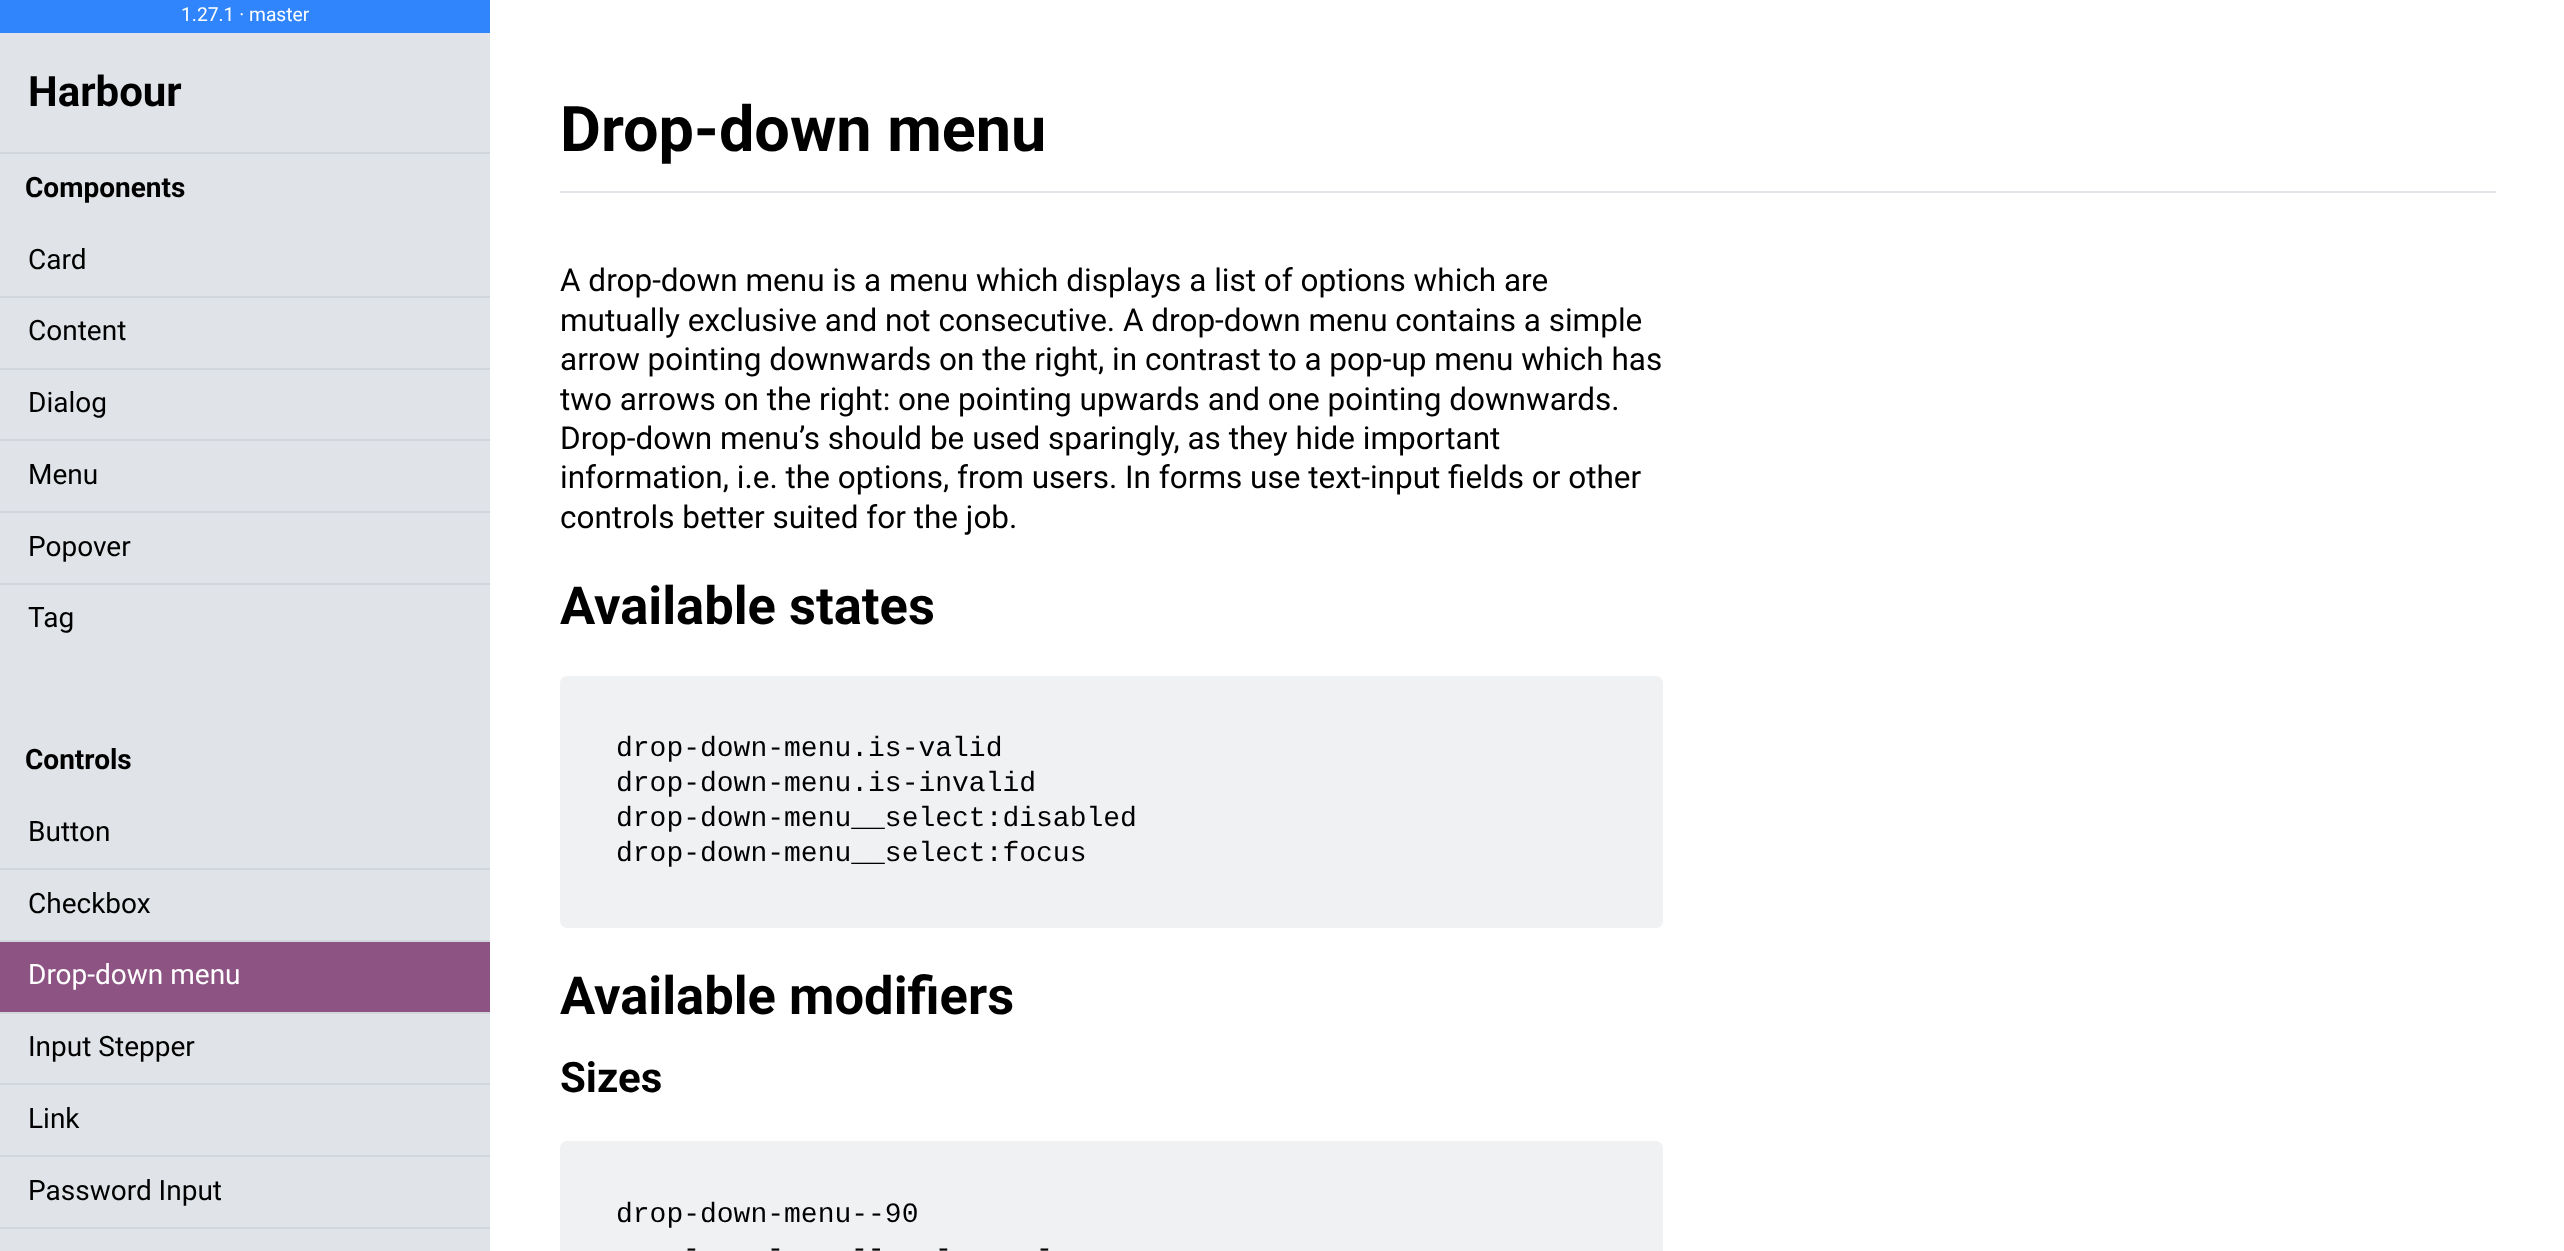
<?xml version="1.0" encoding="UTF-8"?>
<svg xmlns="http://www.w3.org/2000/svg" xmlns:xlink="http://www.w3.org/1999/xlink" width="2564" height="1251">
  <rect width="100%" height="100%" fill="#ffffff" />
  <rect y="33" width="490" height="1218" fill="#e0e4e8" />
  <rect width="490" height="33" fill="#3185fc" />
  <rect y="152" width="490" height="2" fill="#d1d6dc" />
  <rect y="296" width="490" height="2" fill="#d1d6dc" />
  <rect y="368" width="490" height="2" fill="#d1d6dc" />
  <rect y="439" width="490" height="2" fill="#d1d6dc" />
  <rect y="511" width="490" height="2" fill="#d1d6dc" />
  <rect y="583" width="490" height="2" fill="#d1d6dc" />
  <rect y="868" width="490" height="2" fill="#d1d6dc" />
  <rect y="942" width="490" height="70" fill="#8c5383" />
  <rect y="940" width="490" height="2" fill="#d1d6dc" />
  <rect y="1012" width="490" height="2" fill="#d1d6dc" />
  <rect y="1083" width="490" height="2" fill="#d1d6dc" />
  <rect y="1155" width="490" height="2" fill="#d1d6dc" />
  <rect y="1227" width="490" height="2" fill="#d1d6dc" />
  <rect x="560" y="191" width="1936" height="2" fill="#e0e4e8" />
  <rect x="560" y="676" width="1103" height="252" rx="7" fill="#f0f1f3" />
  <rect x="560" y="1141" width="1103" height="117" rx="7" fill="#f0f1f3" />
  <text x="181" y="21" style="font-family: Roboto; font-size: 19.25px; fill: #ffffff">1.27.1 · master</text>
  <text x="28" y="106" style="font-family: Roboto; font-size: 42px; font-weight: bold; fill: #000000">Harbour</text>
  <text x="25" y="197" style="font-family: Roboto; font-size: 28px; font-weight: bold; fill: #000000">Components</text>
  <text x="28" y="269" style="font-family: Roboto; font-size: 28px; fill: #000000">Card</text>
  <text x="28" y="340" style="font-family: Roboto; font-size: 28px; fill: #000000">Content</text>
  <text x="28" y="412" style="font-family: Roboto; font-size: 28px; fill: #000000">Dialog</text>
  <text x="28" y="484" style="font-family: Roboto; font-size: 28px; fill: #000000">Menu</text>
  <text x="28" y="556" style="font-family: Roboto; font-size: 28px; fill: #000000">Popover</text>
  <text x="28" y="627" style="font-family: Roboto; font-size: 28px; fill: #000000">Tag</text>
  <text x="25" y="769" style="font-family: Roboto; font-size: 28px; font-weight: bold; fill: #000000">Controls</text>
  <text x="28" y="841" style="font-family: Roboto; font-size: 28px; fill: #000000">Button</text>
  <text x="28" y="913" style="font-family: Roboto; font-size: 28px; fill: #000000">Checkbox</text>
  <text x="28" y="984" style="font-family: Roboto; font-size: 28px; fill: #ffffff">Drop-down menu</text>
  <text x="28" y="1056" style="font-family: Roboto; font-size: 28px; fill: #000000">Input Stepper</text>
  <text x="28" y="1128" style="font-family: Roboto; font-size: 28px; fill: #000000">Link</text>
  <text x="28" y="1200" style="font-family: Roboto; font-size: 28px; fill: #000000">Password Input</text>
  <text x="560" y="151" style="font-family: Roboto; font-size: 63px; font-weight: bold; fill: #000000">Drop-down menu</text>
  <text x="560" y="291" style="font-family: Roboto; font-size: 31.5px; fill: #000000">A drop-down menu is a menu which displays a list of options which are</text>
  <text x="560" y="331" style="font-family: Roboto; font-size: 31.5px; fill: #000000">mutually exclusive and not consecutive. A drop-down menu contains a simple</text>
  <text x="560" y="370" style="font-family: Roboto; font-size: 31.5px; fill: #000000">arrow pointing downwards on the right, in contrast to a pop-up menu which has</text>
  <text x="560" y="410" style="font-family: Roboto; font-size: 31.5px; fill: #000000">two arrows on the right: one pointing upwards and one pointing downwards.</text>
  <text x="560" y="449" style="font-family: Roboto; font-size: 31.5px; fill: #000000">Drop-down menu’s should be used sparingly, as they hide important</text>
  <text x="560" y="488" style="font-family: Roboto; font-size: 31.5px; fill: #000000">information, i.e. the options, from users. In forms use text-input fields or other</text>
  <text x="560" y="528" style="font-family: Roboto; font-size: 31.5px; fill: #000000">controls better suited for the job.</text>
  <text x="560" y="624" style="font-family: Roboto; font-size: 52.5px; font-weight: bold; fill: #000000">Available states</text>
  <text x="616" y="756" style="font-family: Liberation Mono; font-size: 28px; fill: #000000">drop-down-menu.is-valid</text>
  <text x="616" y="791" style="font-family: Liberation Mono; font-size: 28px; fill: #000000">drop-down-menu.is-invalid</text>
  <text x="616" y="826" style="font-family: Liberation Mono; font-size: 28px; fill: #000000">drop-down-menu__select:disabled</text>
  <text x="616" y="861" style="font-family: Liberation Mono; font-size: 28px; fill: #000000">drop-down-menu__select:focus</text>
  <text x="560" y="1014" style="font-family: Roboto; font-size: 52.5px; font-weight: bold; fill: #000000">Available modifiers</text>
  <text x="560" y="1092" style="font-family: Roboto; font-size: 42px; font-weight: bold; fill: #000000">Sizes</text>
  <text x="616" y="1222" style="font-family: Liberation Mono; font-size: 28px; fill: #000000">drop-down-menu--90</text>
  <text x="683" y="1257" style="font-family: Liberation Mono; font-size: 28px; fill: #000000">-</text>
  <text x="767" y="1257" style="font-family: Liberation Mono; font-size: 28px; fill: #000000">-</text>
  <text x="851" y="1257" style="font-family: Liberation Mono; font-size: 28px; fill: #000000">--</text>
  <text x="935" y="1257" style="font-family: Liberation Mono; font-size: 28px; fill: #000000">-</text>
  <text x="1036" y="1257" style="font-family: Liberation Mono; font-size: 28px; fill: #000000">-</text>
</svg>
